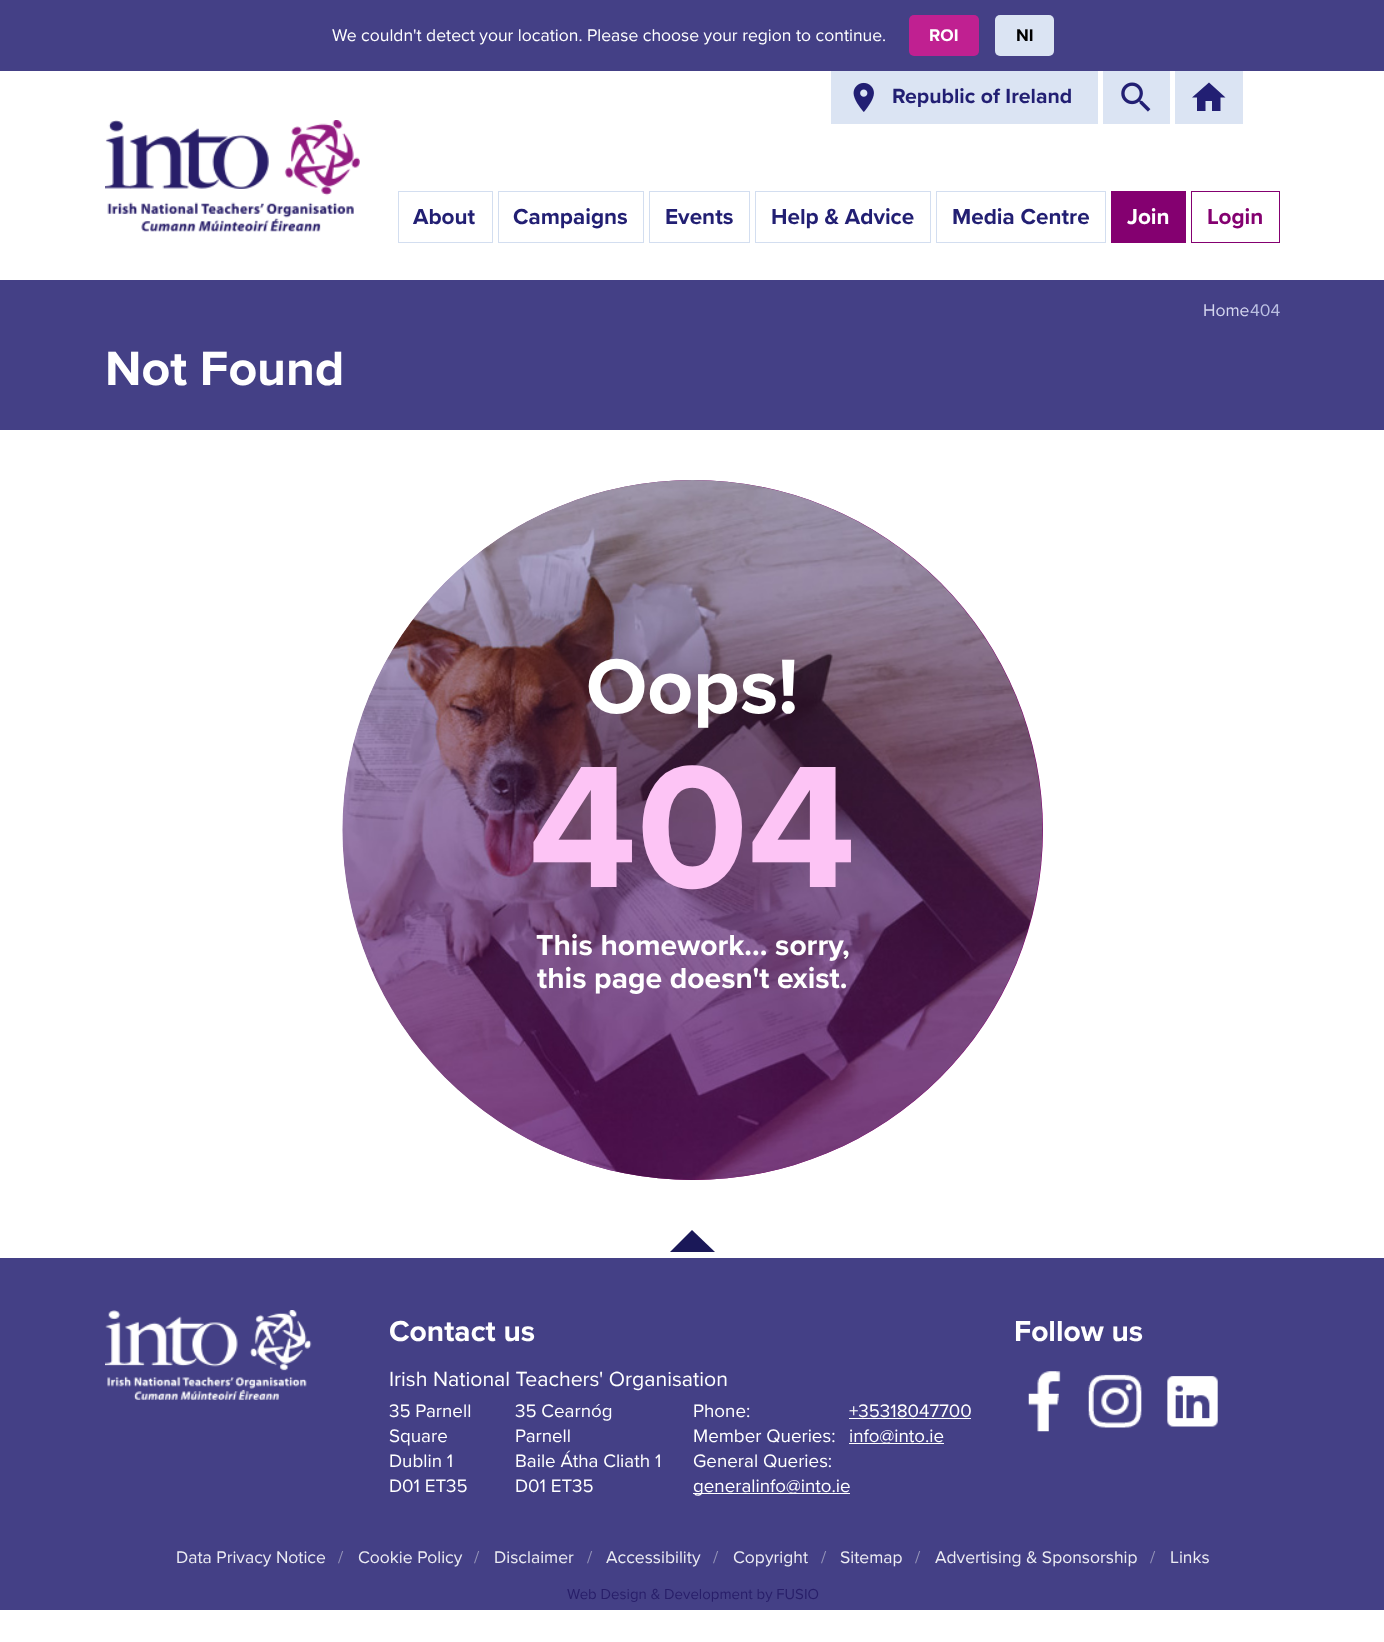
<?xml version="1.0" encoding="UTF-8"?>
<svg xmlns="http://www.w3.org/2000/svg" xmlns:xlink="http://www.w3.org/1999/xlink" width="1384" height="1642">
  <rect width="100%" height="100%" fill="#ffffff" />
  <rect width="1384" height="71" fill="#444086" />
  <rect x="909" y="15" width="70" height="41" rx="5" fill="#c02091" />
  <rect x="995" y="15" width="59" height="41" rx="5" fill="#dbe4f3" />
  <rect x="831" y="71" width="267" height="53" fill="#dbe4f3" />
  <image x="853" y="82" width="21" height="30" xlink:href="image1.png" />
  <rect x="1103" y="71" width="67" height="53" fill="#dbe4f3" />
  <image x="1121" y="82" width="30" height="30" xlink:href="image2.png" />
  <rect x="1175" y="71" width="68" height="53" fill="#dbe4f3" />
  <path d="M 1205.5 111 h -8.5 v -13.5 h -5 l 17 -15 l 16.5 15 h -5 v 13.5 h -8.5 v -10 h -6.5 z" fill="#221f73" />
  <image x="105" y="120" width="255" height="112" xlink:href="image3.png" />
  <rect x="398.5" y="191.5" width="94" height="51" fill="none" stroke="#d3def0" />
  <rect x="498.5" y="191.5" width="145" height="51" fill="none" stroke="#d3def0" />
  <rect x="649.5" y="191.5" width="100" height="51" fill="none" stroke="#d3def0" />
  <rect x="755.5" y="191.5" width="175" height="51" fill="none" stroke="#d3def0" />
  <rect x="936.5" y="191.5" width="169" height="51" fill="none" stroke="#d3def0" />
  <rect x="1111" y="191" width="75" height="52" fill="#840070" />
  <rect x="1191.5" y="191.5" width="88" height="51" fill="none" stroke="#840070" />
  <rect y="280" width="1384" height="150" fill="#444086" />
  <circle cx="693" cy="830" r="350" fill="#840070" />
  <image x="342" y="480" width="701" height="700" xlink:href="image4.png" />
  <path d="M 715 1252 h -45 l 22 -22 z" fill="#1a1858" />
  <rect y="1258" width="1384" height="352" fill="#444086" />
  <image x="105" y="1310" width="207" height="90" xlink:href="image5.png" />
  <rect x="849" y="1418" width="122" height="1" fill="#ffffff" />
  <rect x="849" y="1443" width="95" height="1" fill="#ffffff" />
  <rect x="693" y="1493" width="157" height="1" fill="#ffffff" />
  <image x="1028" y="1371" width="33" height="61" xlink:href="image6.png" />
  <image x="1088" y="1374" width="54" height="54" xlink:href="image7.png" />
  <image x="1167" y="1376" width="51" height="51" xlink:href="image8.png" />
  <text x="332" y="41" style="font-family: Proxima Nova; font-size: 17.5px; fill: #ffffff">We couldn't detect your location. Please choose your region to continue.</text>
  <text x="929" y="41" style="font-family: Proxima Nova; font-size: 17.5px; font-weight: bold; fill: #ffffff">ROI</text>
  <text x="1016" y="41" style="font-family: Proxima Nova; font-size: 17.5px; font-weight: bold; fill: #000000">NI</text>
  <text x="892" y="103" style="font-family: Proxima Nova; font-size: 21.25px; font-weight: bold; fill: #221f73">Republic of Ireland</text>
  <text x="413" y="224" style="font-family: Proxima Nova; font-size: 22.5px; font-weight: bold; fill: #221f73">About</text>
  <text x="513" y="224" style="font-family: Proxima Nova; font-size: 22.5px; font-weight: bold; fill: #221f73">Campaigns</text>
  <text x="665" y="224" style="font-family: Proxima Nova; font-size: 22.5px; font-weight: bold; fill: #221f73">Events</text>
  <text x="771" y="224" style="font-family: Proxima Nova; font-size: 22.5px; font-weight: bold; fill: #221f73">Help &amp; Advice</text>
  <text x="952" y="224" style="font-family: Proxima Nova; font-size: 22.5px; font-weight: bold; fill: #221f73">Media Centre</text>
  <text x="1127" y="224" style="font-family: Proxima Nova; font-size: 22.5px; font-weight: bold; fill: #ffffff">Join</text>
  <text x="1207" y="224" style="font-family: Proxima Nova; font-size: 22.5px; font-weight: bold; fill: #840070">Login</text>
  <text x="1203" y="316" style="font-family: Proxima Nova; font-size: 17.5px; fill: #d5d7ef">Home</text>
  <text x="1250" y="316" style="font-family: Proxima Nova; font-size: 17.5px; fill: #bbbfe2">404</text>
  <text x="105" y="385" style="font-family: Proxima Nova; font-size: 50px; font-weight: bold; fill: #ffffff">Not Found</text>
  <text x="586" y="713" style="font-family: Proxima Nova; font-size: 80px; font-weight: bold; fill: #ffffff">Oops!</text>
  <text x="529" y="887" style="font-family: Proxima Nova; font-size: 180px; font-weight: bold; fill: #fdc4f5">404</text>
  <text x="536" y="955" style="font-family: Proxima Nova; font-size: 30px; font-weight: bold; fill: #ffffff">This homework... sorry,</text>
  <text x="537" y="988" style="font-family: Proxima Nova; font-size: 30px; font-weight: bold; fill: #ffffff">this page doesn't exist.</text>
  <text x="389" y="1341" style="font-family: Proxima Nova; font-size: 30px; font-weight: bold; fill: #ffffff">Contact us</text>
  <text x="389" y="1386" style="font-family: Proxima Nova; font-size: 21.25px; fill: #ffffff">Irish National Teachers' Organisation</text>
  <text x="389" y="1417" style="font-family: Proxima Nova; font-size: 18.75px; fill: #ffffff">35 Parnell</text>
  <text x="389" y="1442" style="font-family: Proxima Nova; font-size: 18.75px; fill: #ffffff">Square</text>
  <text x="389" y="1467" style="font-family: Proxima Nova; font-size: 18.75px; fill: #ffffff">Dublin 1</text>
  <text x="389" y="1492" style="font-family: Proxima Nova; font-size: 18.75px; fill: #ffffff">D01 ET35</text>
  <text x="515" y="1417" style="font-family: Proxima Nova; font-size: 18.75px; fill: #ffffff">35 Cearnóg</text>
  <text x="515" y="1442" style="font-family: Proxima Nova; font-size: 18.75px; fill: #ffffff">Parnell</text>
  <text x="515" y="1467" style="font-family: Proxima Nova; font-size: 18.75px; fill: #ffffff">Baile Átha Cliath 1</text>
  <text x="515" y="1492" style="font-family: Proxima Nova; font-size: 18.75px; fill: #ffffff">D01 ET35</text>
  <text x="693" y="1417" style="font-family: Proxima Nova; font-size: 18.75px; fill: #ffffff">Phone:</text>
  <text x="849" y="1417" style="font-family: Proxima Nova; font-size: 18.75px; fill: #ffffff">+35318047700</text>
  <text x="693" y="1442" style="font-family: Proxima Nova; font-size: 18.75px; fill: #ffffff">Member Queries:</text>
  <text x="849" y="1442" style="font-family: Proxima Nova; font-size: 18.75px; fill: #ffffff">info@into.ie</text>
  <text x="693" y="1467" style="font-family: Proxima Nova; font-size: 18.75px; fill: #ffffff">General Queries:</text>
  <text x="693" y="1492" style="font-family: Proxima Nova; font-size: 18.75px; fill: #ffffff">generalinfo@into.ie</text>
  <text x="1014" y="1341" style="font-family: Proxima Nova; font-size: 30px; font-weight: bold; fill: #ffffff">Follow us</text>
  <text x="176" y="1563" style="font-family: Proxima Nova; font-size: 17.5px; fill: #ececf3">Data Privacy Notice</text>
  <text x="338" y="1563" style="font-family: Proxima Nova; font-size: 17.5px; fill: #9594b8">/</text>
  <text x="358" y="1563" style="font-family: Proxima Nova; font-size: 17.5px; fill: #ececf3">Cookie Policy</text>
  <text x="474" y="1563" style="font-family: Proxima Nova; font-size: 17.5px; fill: #9594b8">/</text>
  <text x="494" y="1563" style="font-family: Proxima Nova; font-size: 17.5px; fill: #ececf3">Disclaimer</text>
  <text x="587" y="1563" style="font-family: Proxima Nova; font-size: 17.5px; fill: #9594b8">/</text>
  <text x="606" y="1563" style="font-family: Proxima Nova; font-size: 17.5px; fill: #ececf3">Accessibility</text>
  <text x="713" y="1563" style="font-family: Proxima Nova; font-size: 17.5px; fill: #9594b8">/</text>
  <text x="733" y="1563" style="font-family: Proxima Nova; font-size: 17.5px; fill: #ececf3">Copyright</text>
  <text x="821" y="1563" style="font-family: Proxima Nova; font-size: 17.5px; fill: #9594b8">/</text>
  <text x="840" y="1563" style="font-family: Proxima Nova; font-size: 17.5px; fill: #ececf3">Sitemap</text>
  <text x="915" y="1563" style="font-family: Proxima Nova; font-size: 17.5px; fill: #9594b8">/</text>
  <text x="935" y="1563" style="font-family: Proxima Nova; font-size: 17.5px; fill: #ececf3">Advertising &amp; Sponsorship</text>
  <text x="1150" y="1563" style="font-family: Proxima Nova; font-size: 17.5px; fill: #9594b8">/</text>
  <text x="1170" y="1563" style="font-family: Proxima Nova; font-size: 17.5px; fill: #ececf3">Links</text>
  <text x="567" y="1599" style="font-family: Proxima Nova; font-size: 15px; fill: #281e69">Web Design &amp; Development by FUSIO</text>
</svg>
